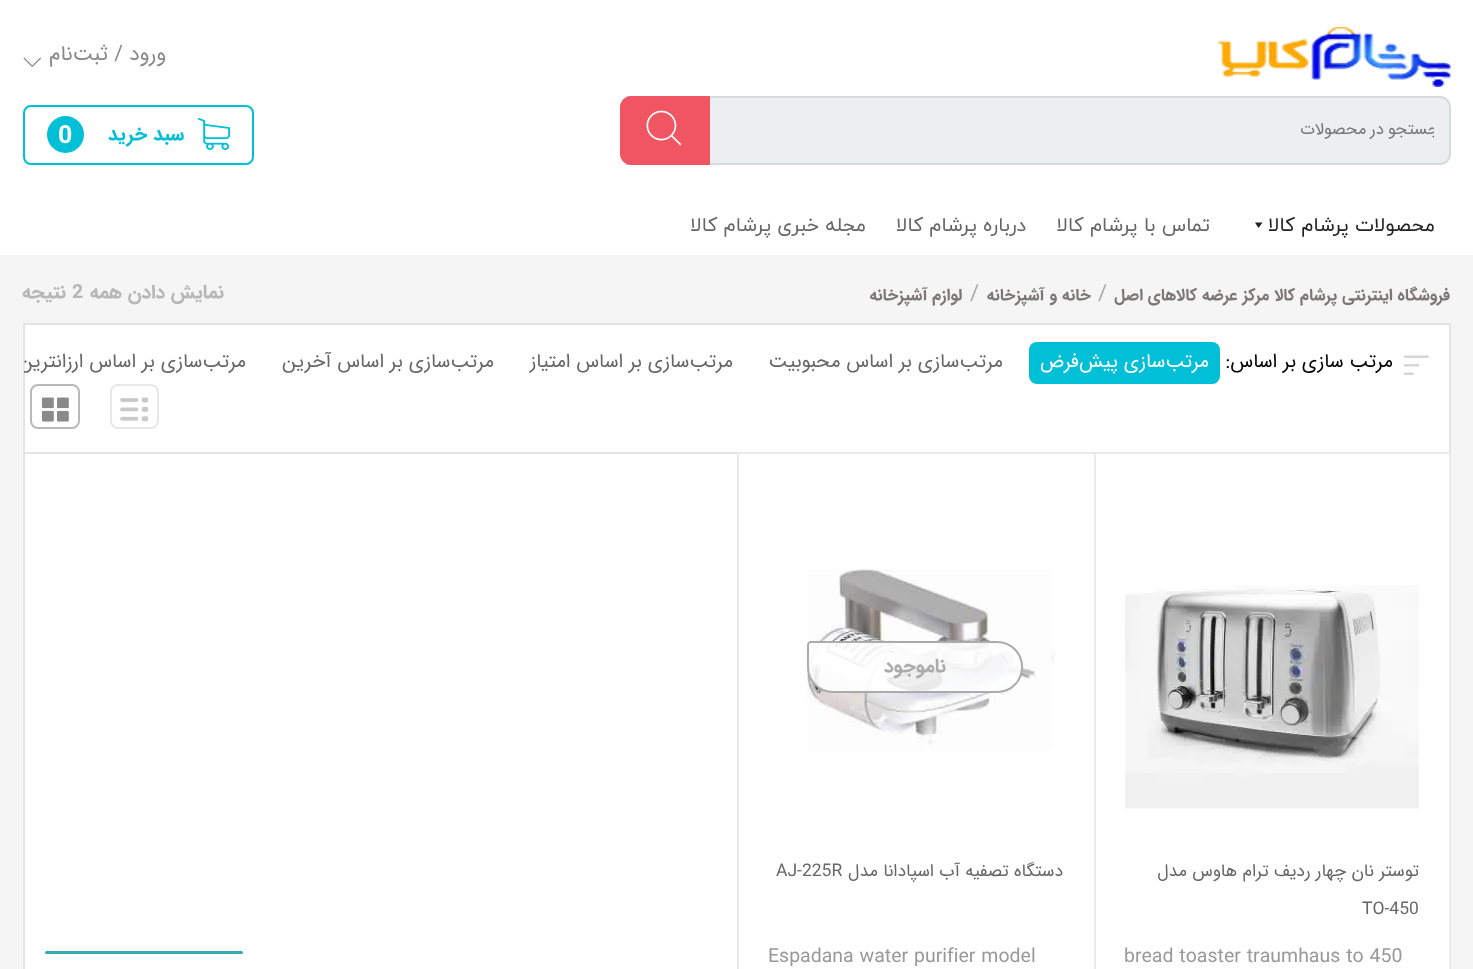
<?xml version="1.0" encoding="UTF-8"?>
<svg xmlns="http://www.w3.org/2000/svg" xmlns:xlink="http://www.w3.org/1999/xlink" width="1473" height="969">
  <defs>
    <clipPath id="clip1"><rect x="660" y="116" width="774" height="27" /></clipPath>
    <clipPath id="clip2"><rect x="24" y="324" width="1425" height="128" /></clipPath>
  </defs>
  <rect width="100%" height="100%" fill="#f5f5f5" />
  <rect width="1473" height="255" fill="#ffffff" />
  <image x="1218" y="27" width="233" height="60" xlink:href="image1.png" />
  <image x="23" y="57" width="18" height="10" xlink:href="image2.png" />
  <path d="M 627 97 h 813 c 5.5 0 10 4.5 10 10 v 47 c 0 5.5 -4.5 10 -10 10 h -813 z" fill="#eceff1" stroke="#d5dadd" stroke-width="2" />
  <path d="M 631 96 h 79 v 69 h -79 c -6 0 -11 -5 -11 -11 v -47 c 0 -6 5 -11 11 -11 z" fill="#ef5661" />
  <image x="646" y="110" width="36" height="36" xlink:href="image3.png" />
  <rect x="24" y="106" width="229" height="58" rx="7" fill="none" stroke="#00bfd6" stroke-width="2" />
  <image x="198" y="118" width="33" height="32" xlink:href="image4.png" />
  <circle cx="65.5" cy="134.5" r="18.5" fill="#00bfd6" />
  <path d="M 1262.5 222.5 l -4 5.5 l -3.5 -5.5 z" fill="#222222" />
  <rect x="25" y="325" width="1424" height="127" fill="#ffffff" />
  <rect x="23" y="323" width="1428" height="2" fill="#e4e4e4" />
  <rect x="1449" y="323" width="2" height="129" fill="#e4e4e4" />
  <rect x="23" y="323" width="2" height="129" fill="#e4e4e4" />
  <image x="1404" y="355" width="25" height="20" xlink:href="image5.png" />
  <rect x="1029" y="342" width="191" height="42" rx="8" fill="#00bfd6" />
  <rect x="111" y="385" width="47" height="43" rx="7" fill="none" stroke="#e7e7e7" stroke-width="2" />
  <image x="120" y="397" width="29" height="25" xlink:href="image6.png" />
  <rect x="31" y="385" width="48" height="43" rx="7" fill="none" stroke="#b9b9b9" stroke-width="2" />
  <image x="42" y="397" width="27" height="25" xlink:href="image7.png" />
  <rect x="25" y="454" width="712" height="515" fill="#ffffff" />
  <rect x="24" y="453" width="1426" height="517" fill="none" stroke="#e4e4e4" stroke-width="2" />
  <rect x="1096" y="454" width="353" height="515" fill="#ffffff" />
  <rect x="737" y="452" width="714" height="2" fill="#ebebeb" />
  <rect x="1449" y="452" width="2" height="517" fill="#ebebeb" />
  <image x="1125" y="585" width="294" height="224" xlink:href="image8.png" />
  <rect x="739" y="454" width="355" height="515" fill="#ffffff" />
  <rect x="1094" y="452" width="2" height="517" fill="#ebebeb" />
  <rect x="737" y="452" width="2" height="517" fill="#ebebeb" />
  <image x="807" y="569" width="249" height="181" xlink:href="image9.png" />
  <path d="M 811 642 h 186 c 14 0 25 11 25 25 c 0 14 -11 25 -25 25 h -164 c -14 0 -25 -11 -25 -25 v -22 c 0 -1.5 1.5 -3 3 -3 z" fill="#ffffff" fill-opacity="0.9" stroke="#ababab" stroke-width="2" />
  <rect x="45" y="951" width="198" height="3" rx="1.5" fill="#36abba" />
  <text x="166" y="60" style="font-family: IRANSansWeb; font-size: 21px; direction: rtl; fill: #888888">ورود / ثبت‌نام</text>
  <g clip-path="url(#clip1)">
    <text x="1439" y="134" word-spacing="-1" style="font-family: IRANSansWeb; font-size: 16.75px; letter-spacing: 0.5px; direction: rtl; fill: #757575">جستجو در محصولات</text>
  </g>
  <text x="184" y="140" style="font-family: IRANSansWeb; font-size: 19.5px; font-weight: bold; direction: rtl; fill: #00bfd6">سبد خرید</text>
  <text x="58" y="143" style="font-family: IRANSansWeb; font-size: 25px; font-weight: bold; fill: #ffffff">0</text>
  <text x="1435" y="231" style="font-family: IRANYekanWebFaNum; font-size: 19.5px; direction: rtl; fill: #222222">محصولات پرشام کالا</text>
  <text x="1210" y="231" style="font-family: IRANYekanWebFaNum; font-size: 19.5px; direction: rtl; fill: #666666">تماس با پرشام کالا</text>
  <text x="1026" y="231" style="font-family: IRANYekanWebFaNum; font-size: 19.5px; direction: rtl; fill: #666666">درباره پرشام کالا</text>
  <text x="866" y="231" style="font-family: IRANYekanWebFaNum; font-size: 19.5px; direction: rtl; fill: #666666">مجله خبری پرشام کالا</text>
  <text x="1450" y="300" style="font-family: IRANSansWeb; font-size: 16.5px; font-weight: bold; direction: rtl; fill: #7b7777">فروشگاه اینترنتی پرشام کالا مرکز عرضه کالاهای اصل</text>
  <text x="1098" y="300" style="font-family: IRANSansWeb; font-size: 22px; fill: #acabab">/</text>
  <text x="1091" y="300" style="font-family: IRANSansWeb; font-size: 16.5px; font-weight: bold; direction: rtl; fill: #7b7777">خانه و آشپزخانه</text>
  <text x="970" y="300" style="font-family: IRANSansWeb; font-size: 22px; fill: #acabab">/</text>
  <text x="962" y="300" style="font-family: IRANSansWeb; font-size: 16.5px; font-weight: bold; direction: rtl; fill: #7b7777">لوازم آشپزخانه</text>
  <text x="224" y="298" style="font-family: IRANSansWeb; font-size: 19.5px; font-weight: bold; direction: rtl; fill: #b7b7b7">نمایش دادن همه</text>
  <text x="72" y="298" style="font-family: IRANSansWeb; font-size: 19.5px; font-weight: bold; fill: #b7b7b7">2</text>
  <text x="66" y="298" style="font-family: IRANSansWeb; font-size: 19.5px; font-weight: bold; direction: rtl; fill: #b7b7b7">نتیجه</text>
  <text x="1393" y="367" style="font-family: IRANSansWeb; font-size: 19.5px; direction: rtl; fill: #000000">مرتب سازی بر اساس:</text>
  <text x="1209" y="367" style="font-family: IRANSansWeb; font-size: 19.5px; direction: rtl; fill: #ffffff">مرتب‌سازی پیش‌فرض</text>
  <text x="1003" y="367" style="font-family: IRANSansWeb; font-size: 19.5px; direction: rtl; fill: #666666">مرتب‌سازی بر اساس محبوبیت</text>
  <text x="733" y="367" style="font-family: IRANSansWeb; font-size: 19.5px; direction: rtl; fill: #666666">مرتب‌سازی بر اساس امتیاز</text>
  <text x="494" y="367" style="font-family: IRANSansWeb; font-size: 19.5px; direction: rtl; fill: #666666">مرتب‌سازی بر اساس آخرین</text>
  <g clip-path="url(#clip2)">
    <text x="246" y="367" style="font-family: IRANSansWeb; font-size: 19.5px; direction: rtl; fill: #666666">مرتب‌سازی بر اساس ارزانترین</text>
  </g>
  <text x="1419" y="876" style="font-family: IRANSansWeb; font-size: 17.5px; direction: rtl; fill: #666666">توستر نان چهار ردیف ترام هاوس مدل</text>
  <text x="1362" y="914" style="font-family: IRANSansWeb; font-size: 17.5px; fill: #666666">TO-450</text>
  <text x="1124" y="962" style="font-family: IRANSansWeb; font-size: 19.5px; fill: #999999">bread toaster traumhaus to 450</text>
  <text x="946" y="672" style="font-family: IRANSansWeb; font-size: 19.5px; font-weight: bold; direction: rtl; fill: #acabab">ناموجود</text>
  <text x="1063" y="876" style="font-family: IRANSansWeb; font-size: 17.5px; direction: rtl; fill: #666666">دستگاه تصفیه آب اسپادانا مدل</text>
  <text x="776" y="876" style="font-family: IRANSansWeb; font-size: 17.5px; fill: #666666">AJ-225R</text>
  <text x="768" y="962" style="font-family: IRANSansWeb; font-size: 19.5px; fill: #999999">Espadana water purifier model</text>
</svg>
